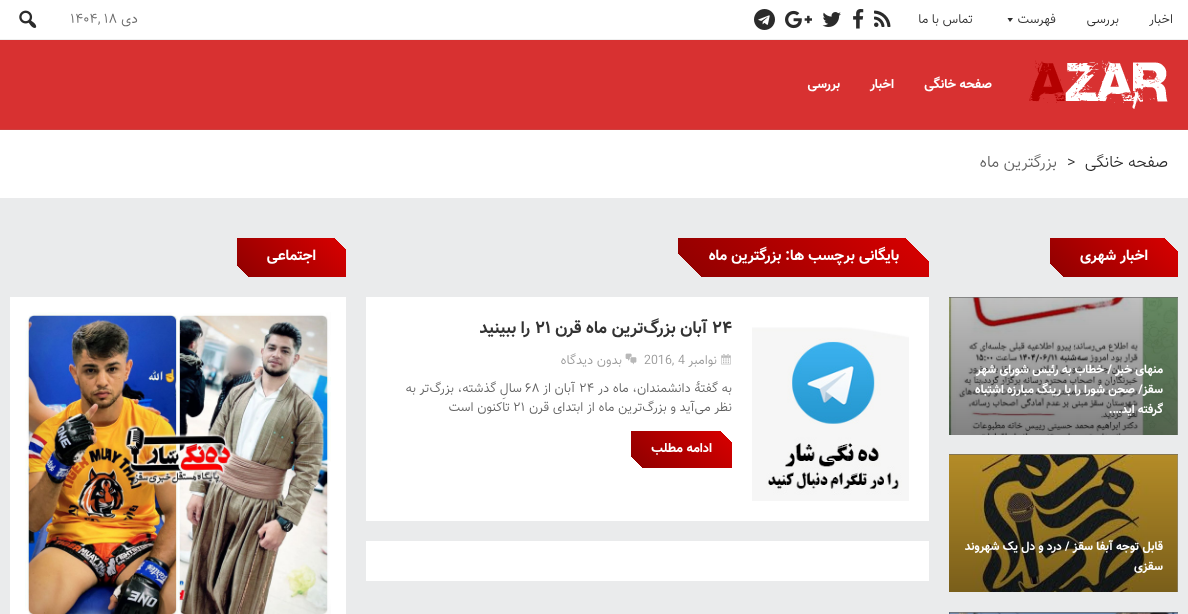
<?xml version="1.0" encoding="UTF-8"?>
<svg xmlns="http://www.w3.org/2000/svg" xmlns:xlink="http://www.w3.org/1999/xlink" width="1188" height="614">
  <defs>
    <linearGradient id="g1" gradientUnits="userSpaceOnUse" x1="1156" y1="216" x2="1072" y2="299"><stop offset="0.08" stop-color="#eaebec" /><stop offset="0.08" stop-color="#d30000" /><stop offset="0.92" stop-color="#940000" /><stop offset="0.92" stop-color="#eaebec" /></linearGradient>
    <clipPath id="clip1"><rect x="949" y="297" width="229" height="138" /></clipPath>
    <clipPath id="clip2"><rect x="949" y="454" width="229" height="138" /></clipPath>
    <clipPath id="clip3"><rect x="949" y="612" width="229" height="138" /></clipPath>
    <linearGradient id="g2" gradientUnits="userSpaceOnUse" x1="876" y1="185" x2="731" y2="330"><stop offset="0.08" stop-color="#eaebec" /><stop offset="0.08" stop-color="#d30000" /><stop offset="0.92" stop-color="#940000" /><stop offset="0.92" stop-color="#eaebec" /></linearGradient>
    <linearGradient id="g3" gradientUnits="userSpaceOnUse" x1="716" y1="415" x2="647" y2="484"><stop offset="0.08" stop-color="#ffffff" /><stop offset="0.08" stop-color="#d30000" /><stop offset="0.92" stop-color="#940000" /><stop offset="0.92" stop-color="#ffffff" /></linearGradient>
    <linearGradient id="g4" gradientUnits="userSpaceOnUse" x1="329" y1="221" x2="255" y2="295"><stop offset="0.08" stop-color="#eaebec" /><stop offset="0.08" stop-color="#d30000" /><stop offset="0.92" stop-color="#940000" /><stop offset="0.92" stop-color="#eaebec" /></linearGradient>
  </defs>
  <rect width="100%" height="100%" fill="#eaebec" />
  <rect width="1188" height="39" fill="#ffffff" />
  <rect y="39" width="1188" height="1" fill="#efefef" />
  <path d="M 1013 18 l -3 4 l -2.5 -4 z" fill="#2b2b2b" />
  <image x="874" y="10" width="17" height="17" xlink:href="image1.png" />
  <image x="853" y="9" width="11" height="20" xlink:href="image2.png" />
  <image x="822" y="12" width="19" height="15" xlink:href="image3.png" />
  <image x="785" y="10" width="27" height="19" xlink:href="image4.png" />
  <image x="754" y="9" width="21" height="21" xlink:href="image5.png" />
  <image x="19" y="10" width="18" height="18" xlink:href="image6.png" />
  <rect y="40" width="1188" height="89" fill="#d83131" />
  <rect y="129" width="1188" height="1" fill="#ce4040" />
  <image x="1029" y="60" width="139" height="49" xlink:href="image7.png" />
  <rect y="130" width="1188" height="68" fill="#ffffff" />
  <rect x="1050" y="238" width="128" height="39" fill="url(#g1)" />
  <image x="949" y="297" width="229" height="138" xlink:href="image8.png" />
  <g clip-path="url(#clip1)">
    <rect x="942.5" y="297.5" width="235" height="141" fill="none" stroke="#8f8f8f" stroke-opacity="0.49" />
  </g>
  <image x="949" y="454" width="229" height="138" xlink:href="image9.png" />
  <g clip-path="url(#clip2)">
    <rect x="942.5" y="454.5" width="235" height="142" fill="none" stroke="#8f8f8f" stroke-opacity="0.49" />
  </g>
  <image x="949" y="612" width="229" height="2" xlink:href="image10.png" />
  <g clip-path="url(#clip3)">
    <rect x="942.5" y="612.5" width="235" height="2" fill="none" stroke="#8f8f8f" stroke-opacity="0.49" />
  </g>
  <rect x="678" y="238" width="251" height="39" fill="url(#g2)" />
  <rect x="366" y="297" width="563" height="224" fill="#ffffff" />
  <image x="752" y="327" width="157" height="174" xlink:href="image11.png" />
  <image x="721" y="354" width="10" height="11" xlink:href="image12.png" />
  <image x="625" y="353" width="12" height="12" xlink:href="image13.png" />
  <rect x="631" y="431" width="101" height="37" fill="url(#g3)" />
  <rect x="366" y="541" width="563" height="40" fill="#ffffff" />
  <rect x="237" y="238" width="109" height="39" fill="url(#g4)" />
  <rect x="10" y="297" width="336" height="317" fill="#ffffff" />
  <image x="25" y="312" width="306" height="302" xlink:href="image14.png" />
  <text x="1173" y="23" style="font-family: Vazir; font-size: 13px; font-weight: 300; direction: rtl; fill: #2b2b2b">اخبار</text>
  <text x="1119" y="23" style="font-family: Vazir; font-size: 13px; font-weight: 300; direction: rtl; fill: #2b2b2b">بررسی</text>
  <text x="1056" y="23" style="font-family: Vazir; font-size: 13px; font-weight: 300; direction: rtl; fill: #2b2b2b">فهرست</text>
  <text x="973" y="23" style="font-family: Vazir; font-size: 13px; font-weight: 300; direction: rtl; fill: #2b2b2b">تماس با ما</text>
  <text x="138" y="23" style="font-family: Vazir; font-size: 14px; font-weight: 300; direction: rtl; fill: #6b6b6b">دی</text>
  <text x="70" y="23" style="font-family: Vazir; font-size: 14px; font-weight: 300; fill: #6b6b6b">۱۴۰۴, ۱۸</text>
  <text x="992" y="88" style="font-family: Vazir; font-size: 13px; font-weight: bold; direction: rtl; fill: #ffffff">صفحه خانگی</text>
  <text x="894" y="88" style="font-family: Vazir; font-size: 13px; font-weight: bold; direction: rtl; fill: #ffffff">اخبار</text>
  <text x="840" y="88" style="font-family: Vazir; font-size: 13px; font-weight: bold; direction: rtl; fill: #ffffff">بررسی</text>
  <text x="1168" y="167" style="font-family: Vazir; font-size: 16px; font-weight: 300; direction: rtl; fill: #2b2b2b">صفحه خانگی</text>
  <text x="1067" y="167" style="font-family: Vazir; font-size: 16px; font-weight: 300; fill: #2b2b2b">&gt;</text>
  <text x="1057" y="167" style="font-family: Vazir; font-size: 16px; font-weight: 300; direction: rtl; fill: #606060">بزرگترین ماه</text>
  <text x="1148" y="260" style="font-family: Vazir; font-size: 15px; font-weight: bold; direction: rtl; fill: #ffffff">اخبار شهری</text>
  <text x="1163" y="373" style="font-family: Vazir; font-size: 12px; font-weight: bold; direction: rtl; fill: #ffffff">منهای خبر / خطاب به رئیس شورای شهر</text>
  <text x="1163" y="393" style="font-family: Vazir; font-size: 12px; font-weight: bold; direction: rtl; fill: #ffffff">سقز/ صحن شورا را با رینگ مبارزه اشتباه</text>
  <text x="1163" y="413" style="font-family: Vazir; font-size: 12px; font-weight: bold; direction: rtl; fill: #ffffff">گرفته اید….</text>
  <text x="1163" y="550" style="font-family: Vazir; font-size: 12px; font-weight: bold; direction: rtl; fill: #ffffff">قابل توجه آبفا سقز / درد و دل یک شهروند</text>
  <text x="1163" y="570" style="font-family: Vazir; font-size: 12px; font-weight: bold; direction: rtl; fill: #ffffff">سقزی</text>
  <text x="899" y="260" style="font-family: Vazir; font-size: 15px; font-weight: bold; direction: rtl; fill: #ffffff">بایگانی برچسب ها: بزرگترین ماه</text>
  <text x="712" y="333" style="font-family: Vazir; font-size: 17px; font-weight: bold; fill: #333333">۲۴</text>
  <text x="707" y="333" style="font-family: Vazir; font-size: 17px; font-weight: bold; direction: rtl; fill: #333333">آبان بزرگ‌ترین ماه قرن</text>
  <text x="535" y="333" style="font-family: Vazir; font-size: 17px; font-weight: bold; fill: #333333">۲۱</text>
  <text x="530" y="333" style="font-family: Vazir; font-size: 17px; font-weight: bold; direction: rtl; fill: #333333">را ببینید</text>
  <text x="717" y="364" style="font-family: Vazir; font-size: 13px; font-weight: 300; direction: rtl; fill: #999999">نوامبر</text>
  <text x="644" y="364" style="font-family: Vazir; font-size: 13px; font-weight: 300; fill: #999999">2016, 4</text>
  <text x="622" y="364" style="font-family: Vazir; font-size: 13px; font-weight: 300; direction: rtl; fill: #999999">بدون دیدگاه</text>
  <text x="732" y="392" style="font-family: Vazir; font-size: 13px; font-weight: 300; direction: rtl; fill: #606060">به گفتۀ دانشمندان، ماه در</text>
  <text x="579" y="392" style="font-family: Vazir; font-size: 13px; font-weight: 300; fill: #606060">۲۴</text>
  <text x="575" y="392" style="font-family: Vazir; font-size: 13px; font-weight: 300; direction: rtl; fill: #606060">آبان از</text>
  <text x="525" y="392" style="font-family: Vazir; font-size: 13px; font-weight: 300; fill: #606060">۶۸</text>
  <text x="522" y="392" style="font-family: Vazir; font-size: 13px; font-weight: 300; direction: rtl; fill: #606060">سالِ گذشته، بزرگ‌تر به</text>
  <text x="732" y="411" style="font-family: Vazir; font-size: 13px; font-weight: 300; direction: rtl; fill: #606060">نظر می‌آید و بزرگ‌ترین ماه از ابتدای قرن</text>
  <text x="513" y="411" style="font-family: Vazir; font-size: 13px; font-weight: 300; fill: #606060">۲۱</text>
  <text x="510" y="411" style="font-family: Vazir; font-size: 13px; font-weight: 300; direction: rtl; fill: #606060">تاکنون است</text>
  <text x="712" y="452" style="font-family: Vazir; font-size: 13px; font-weight: bold; direction: rtl; fill: #ffffff">ادامه مطلب</text>
  <text x="316" y="260" style="font-family: Vazir; font-size: 15px; font-weight: bold; direction: rtl; fill: #ffffff">اجتماعی</text>
</svg>
